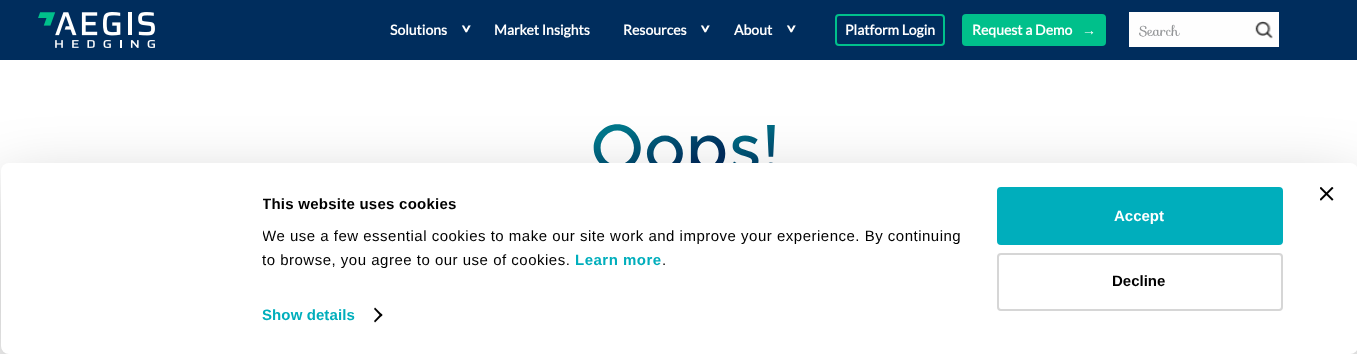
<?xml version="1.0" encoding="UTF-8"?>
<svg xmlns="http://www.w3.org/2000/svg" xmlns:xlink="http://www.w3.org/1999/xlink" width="1357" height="354">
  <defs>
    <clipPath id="clip1"><rect x="263" y="193" width="728" height="79" /></clipPath>
  </defs>
  <rect width="100%" height="100%" fill="#ffffff" />
  <rect width="1357" height="60" fill="#002d5d" />
  <image x="38" y="12" width="117" height="36" xlink:href="image1.png" />
  <rect x="836" y="15" width="108" height="30" rx="3" fill="none" stroke="#00c08b" stroke-width="2" />
  <rect x="962" y="14" width="144" height="32" rx="4" fill="#00c08b" />
  <rect x="1129" y="12" width="150" height="35" fill="#fefefe" />
  <image x="1255" y="21" width="18" height="18" xlink:href="image2.png" />
  <image x="593" y="124" width="182" height="39" xlink:href="image3.png" />
  <rect x="1" y="193" width="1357" height="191" rx="8" fill="#000000" fill-opacity="0.3" filter="blur(35px)" />
  <rect x="1" y="163" width="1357" height="191" rx="8" fill="#ffffff" />
  <image x="1320" y="187" width="14" height="14" xlink:href="image4.png" />
  <path d="M 375 307.5 l 7.5 7.5 l -1.5 1.5 l -7 -7.5 z" fill="#000000" />
  <path d="M 381 313.5 l 1.5 1.5 l -7.5 7.5 l -1 -1.5 z" fill="#000000" />
  <rect x="998" y="188" width="284" height="56" rx="3" fill="#00aebc" stroke="#00aebc" stroke-width="2" />
  <rect x="998" y="254" width="284" height="56" rx="3" fill="none" stroke="#d6d6d6" stroke-width="2" />
  <text x="390" y="35" style="font-family: Lato; font-size: 14px; font-weight: bold; fill: #ffffff">Solutions</text>
  <text x="472" y="18" transform="rotate(180 472 18)" style="font-family: Lato; font-size: 19px; font-weight: bold; letter-spacing: 7px; fill: #ffffff">^</text>
  <text x="494" y="35" style="font-family: Lato; font-size: 14px; font-weight: bold; fill: #ffffff">Market Insights</text>
  <text x="623" y="35" style="font-family: Lato; font-size: 14px; font-weight: bold; fill: #ffffff">Resources</text>
  <text x="711" y="18" transform="rotate(180 711 18)" style="font-family: Lato; font-size: 19px; font-weight: bold; letter-spacing: 7px; fill: #ffffff">^</text>
  <text x="734" y="35" style="font-family: Lato; font-size: 14px; font-weight: bold; fill: #ffffff">About</text>
  <text x="797" y="18" transform="rotate(180 797 18)" style="font-family: Lato; font-size: 19px; font-weight: bold; letter-spacing: 7px; fill: #ffffff">^</text>
  <text x="845" y="35" style="font-family: Lato; font-size: 14px; font-weight: bold; fill: #ffffff">Platform Login</text>
  <text x="972" y="35" style="font-family: Lato; font-size: 14px; font-weight: bold; fill: #ffffff">Request a Demo</text>
  <text x="1082" y="35" style="font-family: Liberation Sans; font-size: 14px; fill: #ffffff">→</text>
  <text x="1139" y="36" style="font-family: Sofia; font-size: 14px; fill: #939597">Search</text>
  <g clip-path="url(#clip1)">
    <text x="262" y="209" style="font-family: Liberation Sans; font-size: 15px; font-weight: bold; letter-spacing: 0.25px; fill: #000000">This website uses cookies</text>
    <text x="262" y="241" style="font-family: Liberation Sans; font-size: 15px; letter-spacing: 0.5px; fill: #000000">We use a few essential cookies to make our site work and improve your experience. By continuing</text>
  </g>
  <text x="262" y="265" style="font-family: Liberation Sans; font-size: 15px; letter-spacing: 0.5px; fill: #000000">to browse, you agree to our use of cookies.</text>
  <text x="575" y="265" style="font-family: Liberation Sans; font-size: 15px; font-weight: bold; letter-spacing: 0.5px; fill: #00aebc">Learn more</text>
  <text x="662" y="265" style="font-family: Liberation Sans; font-size: 15px; letter-spacing: 0.5px; fill: #000000">.</text>
  <text x="262" y="320" style="font-family: Liberation Sans; font-size: 15px; font-weight: bold; letter-spacing: 0.1px; fill: #00aebc">Show details</text>
  <text x="1114" y="221" style="font-family: Liberation Sans; font-size: 15px; font-weight: bold; fill: #ffffff">Accept</text>
  <text x="1112" y="286" style="font-family: Liberation Sans; font-size: 15px; font-weight: bold; fill: #000000">Decline</text>
</svg>
